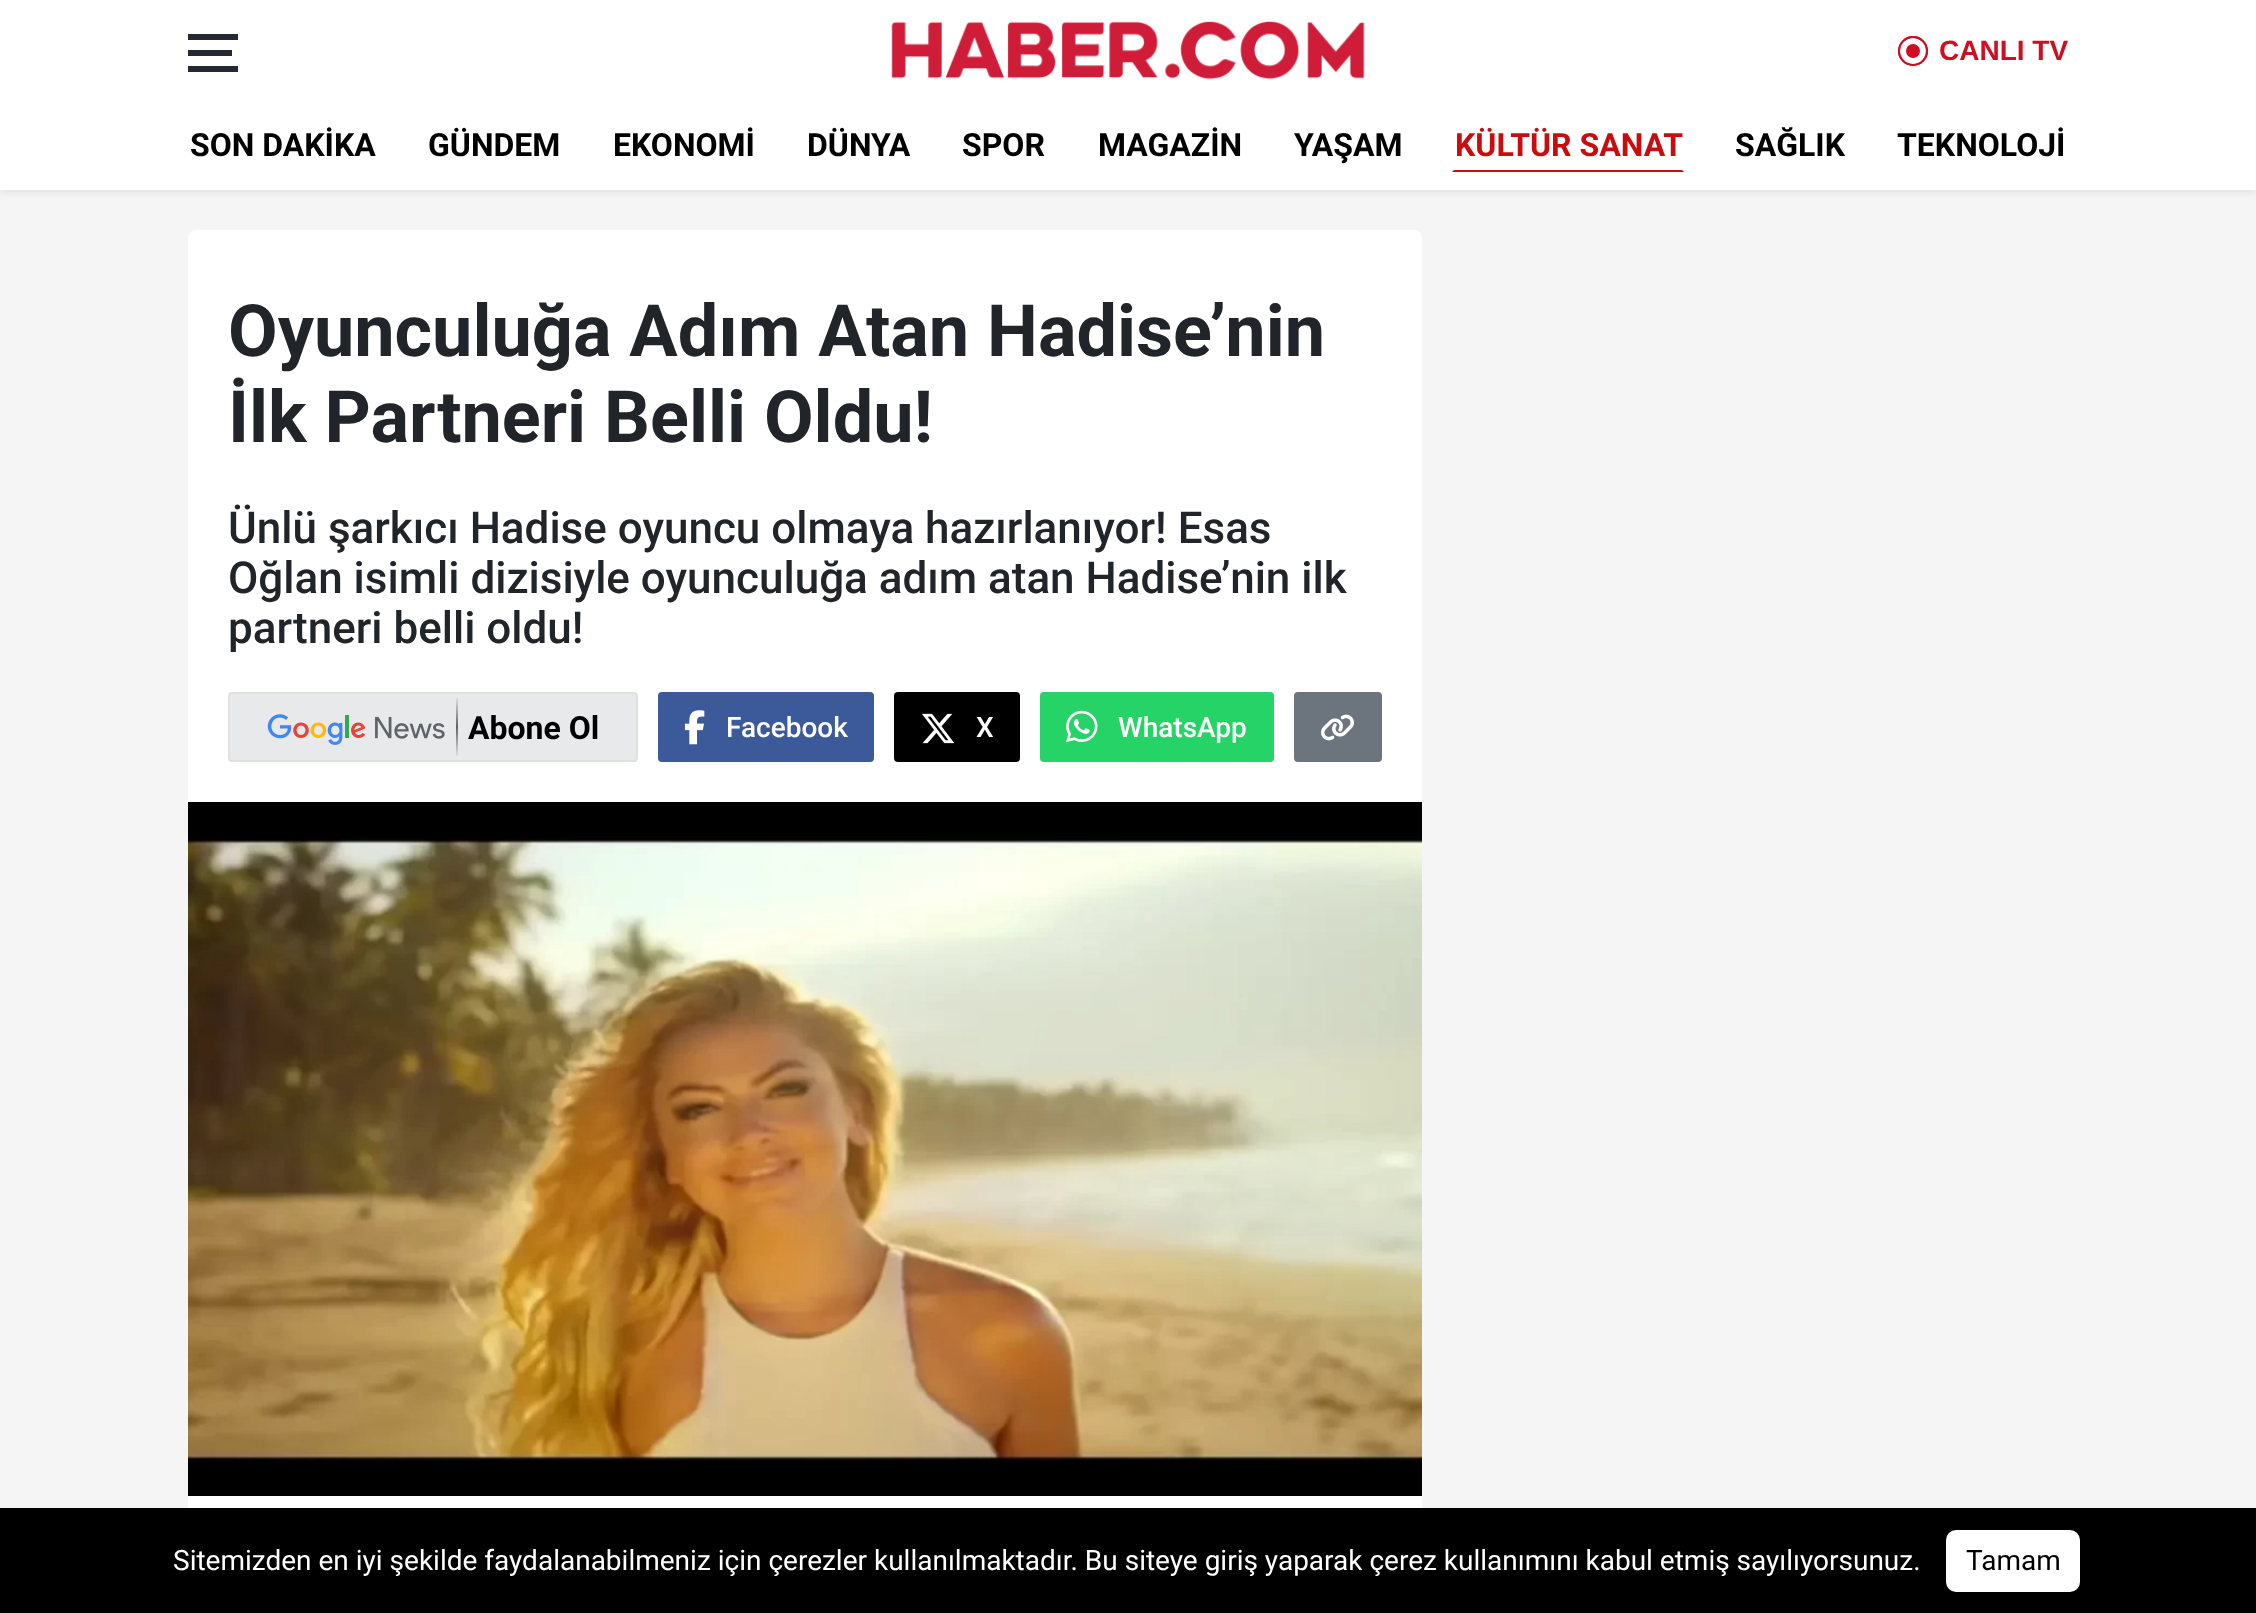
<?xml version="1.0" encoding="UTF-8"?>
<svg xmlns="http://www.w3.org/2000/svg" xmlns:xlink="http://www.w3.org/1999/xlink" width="2256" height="1613">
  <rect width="100%" height="100%" fill="#f5f5f5" />
  <rect y="102" width="2256" height="90" fill="#adadad" fill-opacity="0.3" filter="blur(4px)" />
  <rect width="2256" height="190" fill="#ffffff" />
  <rect x="188" y="34" width="50" height="6" fill="#242833" />
  <rect x="188" y="50" width="44" height="6" fill="#242833" />
  <rect x="188" y="66" width="50" height="6" fill="#242833" />
  <image x="891" y="21" width="474" height="59" xlink:href="image1.png" />
  <circle cx="1913" cy="51" r="15" fill="#cc0f23" />
  <circle cx="1913" cy="51" r="10" fill="none" stroke="#ffffff" stroke-width="6" />
  <circle cx="1913" cy="51" r="14" fill="none" stroke="#cc0f23" stroke-width="2" />
  <path d="M 1684 172 h -232 l 2 -2 h 228 z" fill="#c90c0f" />
  <rect x="188" y="230" width="1234" height="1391" rx="8" fill="#ffffff" />
  <rect x="229" y="693" width="408" height="68" rx="3" fill="#e7e9ea" stroke="#e0e0dc" stroke-width="2" />
  <image x="267" y="714" width="178" height="31" xlink:href="image2.png" />
  <image x="456" y="698" width="2" height="58" xlink:href="image3.png" />
  <rect x="658" y="692" width="216" height="70" rx="4" fill="#3c5a99" />
  <image x="684" y="710" width="21" height="35" xlink:href="image4.png" />
  <rect x="894" y="692" width="126" height="70" rx="4" fill="#000000" />
  <image x="922" y="713" width="33" height="31" xlink:href="image5.png" />
  <rect x="1040" y="692" width="234" height="70" rx="4" fill="#25d366" />
  <image x="1066" y="710" width="32" height="33" xlink:href="image6.png" />
  <rect x="1294" y="692" width="88" height="70" rx="4" fill="#6c757d" />
  <image x="1321" y="714" width="33" height="27" xlink:href="image7.png" />
  <image x="188" y="802" width="1234" height="694" xlink:href="image8.png" />
  <rect y="1508" width="2256" height="105" fill="#000000" />
  <rect x="1945" y="1529" width="136" height="64" rx="11" fill="#ffffff" stroke="#000000" stroke-width="2" />
  <text x="1939" y="60" style="font-family: Liberation Sans; font-size: 28px; font-weight: bold; fill: #cc0f23">CANLI TV</text>
  <text x="190" y="156" style="font-family: Roboto; font-size: 32px; font-weight: bold; fill: #000000">SON DAKİKA</text>
  <text x="428" y="156" style="font-family: Roboto; font-size: 32px; font-weight: bold; fill: #000000">GÜNDEM</text>
  <text x="613" y="156" style="font-family: Roboto; font-size: 32px; font-weight: bold; fill: #000000">EKONOMİ</text>
  <text x="807" y="156" style="font-family: Roboto; font-size: 32px; font-weight: bold; fill: #000000">DÜNYA</text>
  <text x="962" y="156" style="font-family: Roboto; font-size: 32px; font-weight: bold; fill: #000000">SPOR</text>
  <text x="1098" y="156" style="font-family: Roboto; font-size: 32px; font-weight: bold; fill: #000000">MAGAZİN</text>
  <text x="1294" y="156" style="font-family: Roboto; font-size: 32px; font-weight: bold; fill: #000000">YAŞAM</text>
  <text x="1455" y="156" style="font-family: Roboto; font-size: 32px; font-weight: bold; fill: #c90c0f">KÜLTÜR SANAT</text>
  <text x="1735" y="156" style="font-family: Roboto; font-size: 32px; font-weight: bold; fill: #000000">SAĞLIK</text>
  <text x="1897" y="156" style="font-family: Roboto; font-size: 32px; font-weight: bold; fill: #000000">TEKNOLOJİ</text>
  <text x="228" y="356" style="font-family: Roboto; font-size: 72px; font-weight: bold; fill: #212529">Oyunculuğa Adım Atan Hadise’nin</text>
  <text x="228" y="442" style="font-family: Roboto; font-size: 72px; font-weight: bold; fill: #212529">İlk Partneri Belli Oldu!</text>
  <text x="228" y="543" style="font-family: Roboto; font-size: 44px; font-weight: 500; fill: #212529">Ünlü şarkıcı Hadise oyuncu olmaya hazırlanıyor! Esas</text>
  <text x="228" y="593" style="font-family: Roboto; font-size: 44px; font-weight: 500; fill: #212529">Oğlan isimli dizisiyle oyunculuğa adım atan Hadise’nin ilk</text>
  <text x="228" y="643" style="font-family: Roboto; font-size: 44px; font-weight: 500; fill: #212529">partneri belli oldu!</text>
  <text x="468" y="739" style="font-family: Roboto; font-size: 32px; font-weight: bold; fill: #000000">Abone Ol</text>
  <text x="726" y="737" style="font-family: Roboto; font-size: 28px; font-weight: 500; fill: #ffffff">Facebook</text>
  <text x="976" y="737" style="font-family: Roboto; font-size: 28px; font-weight: 500; fill: #ffffff">X</text>
  <text x="1118" y="737" style="font-family: Roboto; font-size: 28px; font-weight: 500; fill: #ffffff">WhatsApp</text>
  <text x="173" y="1570" style="font-family: Roboto; font-size: 28px; fill: #ffffff">Sitemizden en iyi şekilde faydalanabilmeniz için çerezler kullanılmaktadır. Bu siteye giriş yaparak çerez kullanımını kabul etmiş sayılıyorsunuz.</text>
  <text x="1966" y="1570" style="font-family: Roboto; font-size: 28px; fill: #000000">Tamam</text>
</svg>
